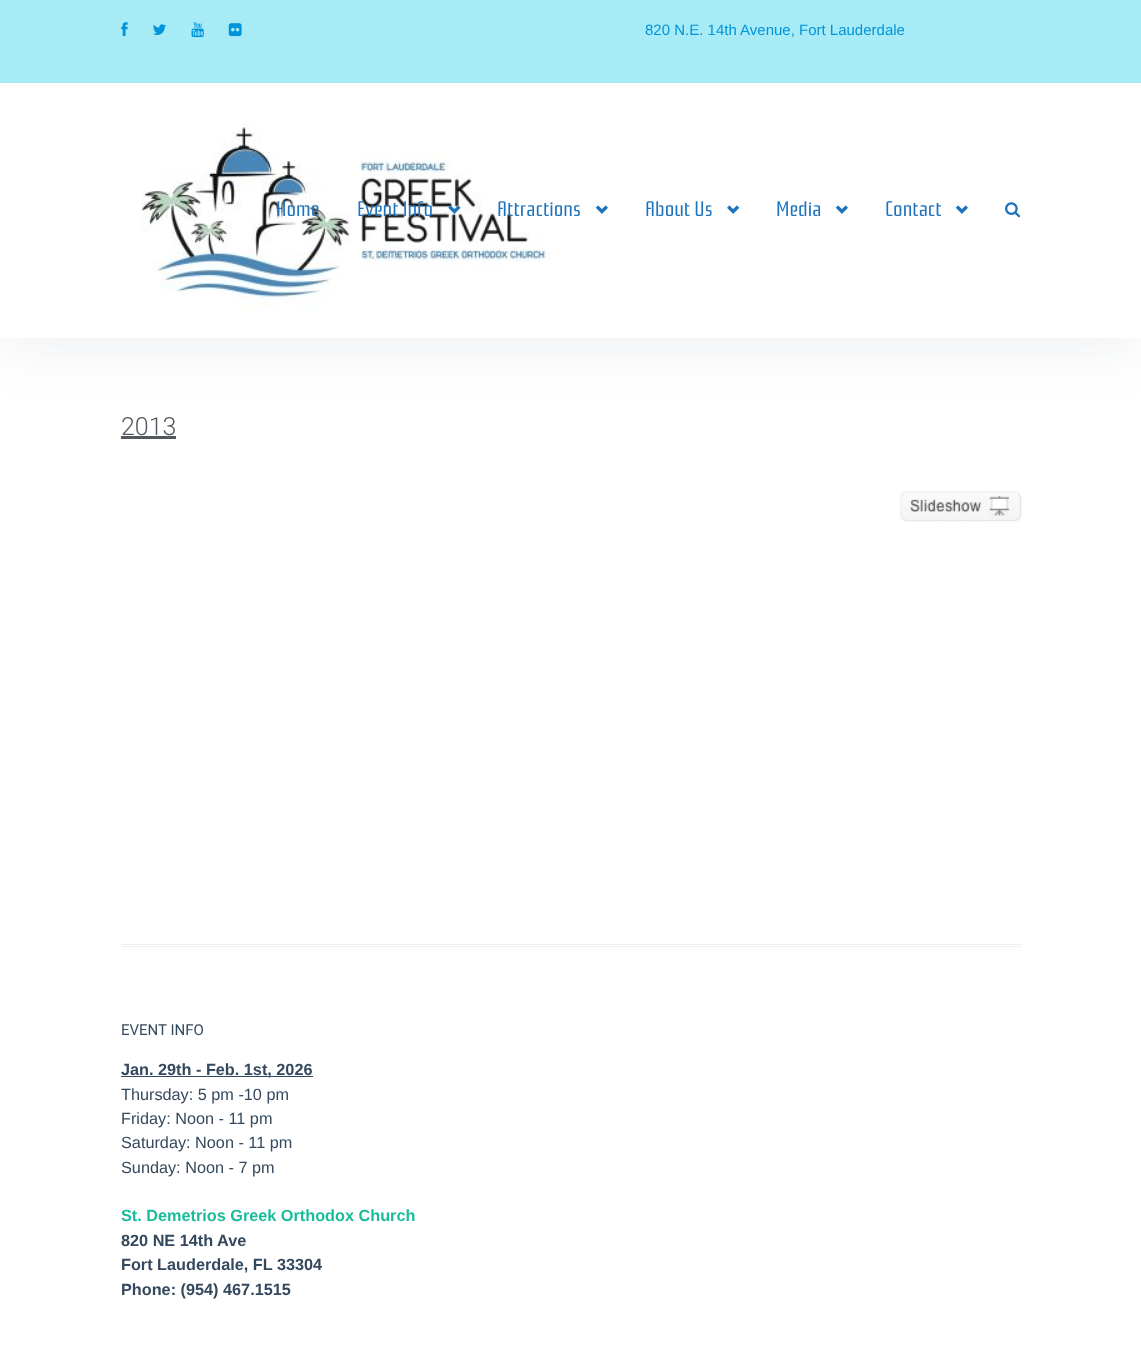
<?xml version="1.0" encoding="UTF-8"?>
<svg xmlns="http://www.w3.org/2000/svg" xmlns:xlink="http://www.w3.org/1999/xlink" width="1141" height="1356">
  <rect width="100%" height="100%" fill="#ffffff" />
  <rect y="4" width="1141" height="337" fill="#34495e" fill-opacity="0.1" filter="blur(31px)" />
  <rect y="83" width="1141" height="255" fill="#ffffff" />
  <rect width="1141" height="83" fill="#a7ebf6" />
  <image x="121" y="22" width="7" height="15" xlink:href="image1.png" />
  <image x="153" y="24" width="13" height="11" xlink:href="image2.png" />
  <image x="191" y="22" width="13" height="16" xlink:href="image3.png" />
  <image x="228" y="23" width="14" height="14" xlink:href="image4.png" />
  <image x="141" y="123" width="416" height="186" xlink:href="image5.png" />
  <image x="448" y="205" width="13" height="9" xlink:href="image6.png" />
  <image x="595" y="205" width="13" height="9" xlink:href="image7.png" />
  <image x="727" y="205" width="13" height="9" xlink:href="image8.png" />
  <image x="835" y="205" width="13" height="9" xlink:href="image7.png" />
  <image x="955" y="205" width="13" height="9" xlink:href="image7.png" />
  <image x="1005" y="202" width="16" height="16" xlink:href="image9.png" />
  <rect x="121" y="944" width="900" height="1" fill="#ecf0f1" />
  <rect x="121" y="946" width="900" height="1" fill="#ecf0f1" />
  <rect x="121" y="436" width="55" height="3" fill="#52585e" />
  <image x="900" y="491" width="122" height="31" xlink:href="image10.png" />
  <rect x="121" y="1076" width="192" height="1" fill="#34495e" />
  <text x="645" y="35" style="font-family: Liberation Sans; font-size: 15px; fill: #0094da">820 N.E. 14th Avenue, Fort Lauderdale</text>
  <text x="276" y="216" style="font-family: Rationale; font-size: 21px; fill: #1e73be">Home</text>
  <text x="357" y="216" style="font-family: Rationale; font-size: 21px; fill: #1e73be">Event Info</text>
  <text x="497" y="216" style="font-family: Rationale; font-size: 21px; fill: #1e73be">Attractions</text>
  <text x="645" y="216" style="font-family: Rationale; font-size: 21px; fill: #1e73be">About Us</text>
  <text x="776" y="216" style="font-family: Rationale; font-size: 21px; fill: #1e73be">Media</text>
  <text x="885" y="216" style="font-family: Rationale; font-size: 21px; fill: #1e73be">Contact</text>
  <text x="121" y="435" style="font-family: Roboto; font-size: 25px; font-weight: 300; fill: #52585e">2013</text>
  <text x="121" y="1035" style="font-family: Roboto; font-size: 15px; fill: #34495e">EVENT INFO</text>
  <text x="121" y="1075" style="font-family: Liberation Sans; font-size: 16.25px; font-weight: bold; fill: #34495e">Jan. 29th - Feb. 1st, 2026</text>
  <text x="121" y="1100" style="font-family: Liberation Sans; font-size: 16.25px; fill: #34495e">Thursday: 5 pm -10 pm</text>
  <text x="121" y="1124" style="font-family: Liberation Sans; font-size: 16.25px; fill: #34495e">Friday: Noon - 11 pm</text>
  <text x="121" y="1148" style="font-family: Liberation Sans; font-size: 16.25px; fill: #34495e">Saturday: Noon - 11 pm</text>
  <text x="121" y="1173" style="font-family: Liberation Sans; font-size: 16.25px; fill: #34495e">Sunday: Noon - 7 pm</text>
  <text x="121" y="1221" style="font-family: Liberation Sans; font-size: 16.25px; font-weight: bold; fill: #1abc9c">St. Demetrios Greek Orthodox Church</text>
  <text x="121" y="1246" style="font-family: Liberation Sans; font-size: 16.25px; font-weight: bold; fill: #34495e">820 NE 14th Ave</text>
  <text x="121" y="1270" style="font-family: Liberation Sans; font-size: 16.25px; font-weight: bold; fill: #34495e">Fort Lauderdale, FL 33304</text>
  <text x="121" y="1295" style="font-family: Liberation Sans; font-size: 16.25px; font-weight: bold; fill: #34495e">Phone: (954) 467.1515</text>
</svg>
